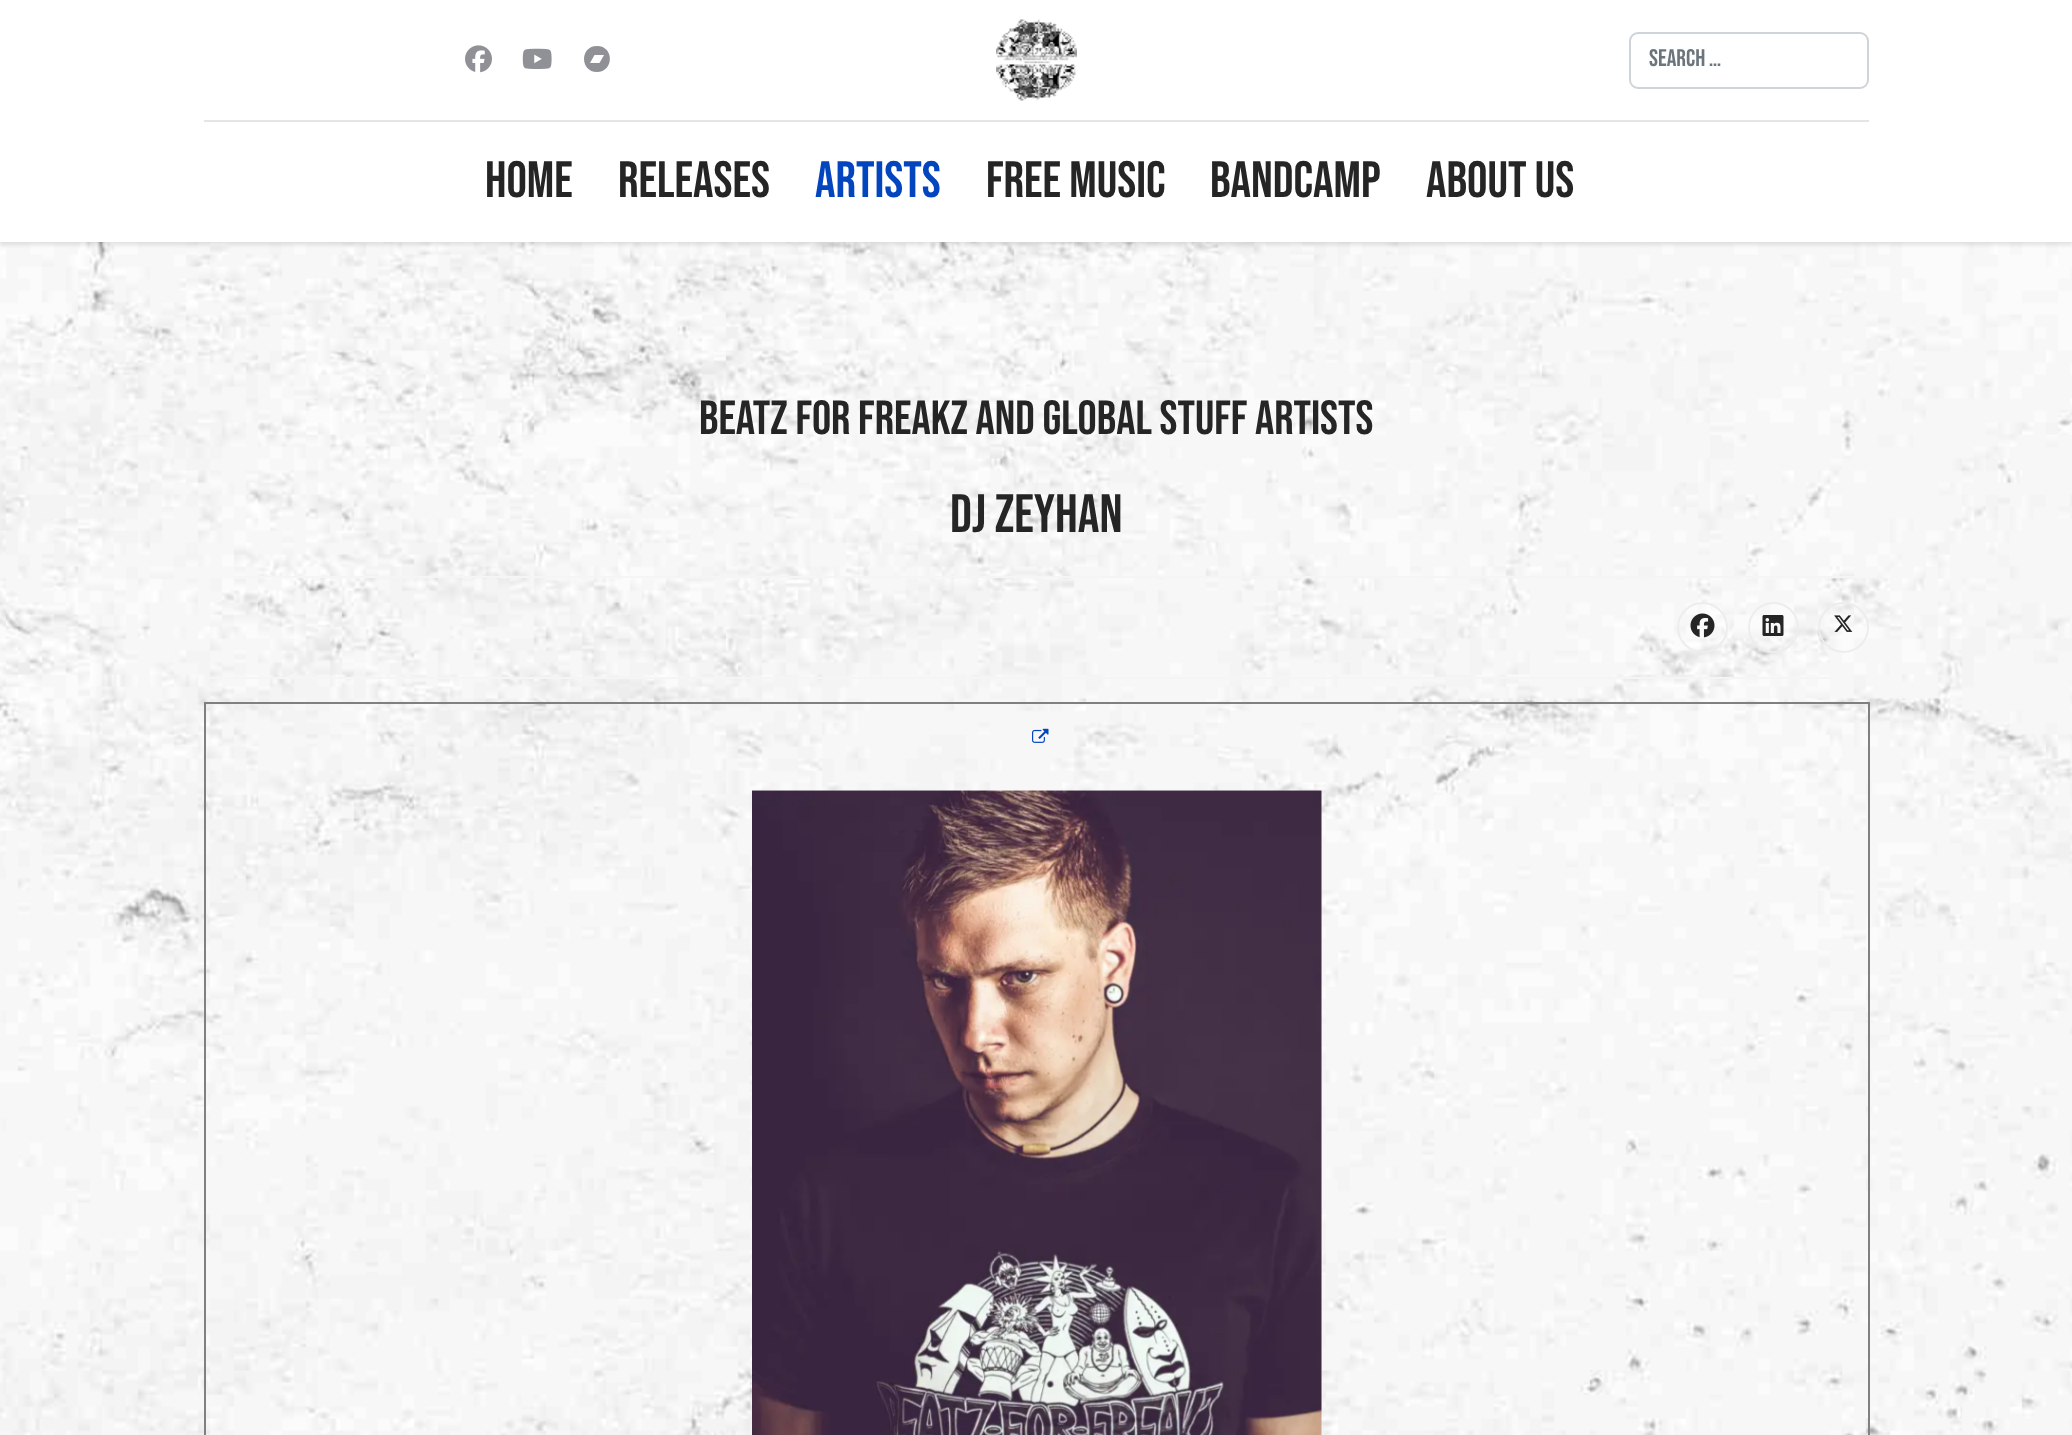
<?xml version="1.0" encoding="UTF-8"?>
<svg xmlns="http://www.w3.org/2000/svg" xmlns:xlink="http://www.w3.org/1999/xlink" width="2072" height="1435">
  <rect width="100%" height="100%" fill="#ffffff" />
  <image x="0" y="242" width="2072" height="1193" xlink:href="image4.png" />
  <rect y="125" width="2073" height="120" fill="#000000" fill-opacity="0.1" filter="blur(2px)" />
  <rect x="204" y="120" width="1665" height="2" fill="#e5e5e5" />
  <image x="465" y="45" width="27" height="28" xlink:href="image1.png" />
  <image x="522" y="48" width="30" height="21" xlink:href="image2.png" />
  <path d="M 597 46 c -17.5 0 -17 26 0 26 c 17 0 17.5 -26 0 -26 z m 2.5 17 h -9.5 h 9.5 h -9.5 l 4.5 -8 h 9.5 z" fill="#909196" />
  <image x="996" y="19" width="81" height="82" xlink:href="image3.png" />
  <rect x="1630" y="33" width="238" height="55" rx="8" fill="none" stroke="#ced4da" stroke-width="2" />
  <rect y="122" width="2072" height="120" fill="#ffffff" />
  <rect x="233" y="576" width="1621" height="2" fill="#f5f5f5" />
  <rect x="204" y="677" width="1627" height="2" fill="#f5f5f5" />
  <circle cx="1702.5" cy="627.5" r="24.5" fill="none" stroke="#ededed" stroke-width="2" />
  <image x="1690" y="613" width="25" height="25" xlink:href="image5.png" />
  <circle cx="1773.5" cy="627.5" r="24.5" fill="none" stroke="#ededed" stroke-width="2" />
  <image x="1762" y="615" width="22" height="21" xlink:href="image6.png" />
  <circle cx="1843.5" cy="627.5" r="24.5" fill="none" stroke="#ededed" stroke-width="2" />
  <image x="1834" y="615" width="19" height="17" xlink:href="image7.png" />
  <rect x="204" y="702" width="1665" height="2" fill="#808080" />
  <rect x="1868" y="702" width="2" height="733" fill="#808080" />
  <rect x="204" y="702" width="2" height="733" fill="#808080" />
  <image x="1032" y="728" width="17" height="15" xlink:href="image8.png" />
  <image x="752" y="790" width="570" height="645" xlink:href="image9.png" />
  <text x="1649" y="66" style="font-family: Bebas Neue; font-size: 24px; fill: #6c757d">Search …</text>
  <text x="485" y="197" style="font-family: Bebas Neue; font-size: 51px; fill: #252525">Home</text>
  <text x="618" y="197" style="font-family: Bebas Neue; font-size: 51px; fill: #252525">Releases</text>
  <text x="815" y="197" style="font-family: Bebas Neue; font-size: 51px; fill: #0345bf">Artists</text>
  <text x="986" y="197" style="font-family: Bebas Neue; font-size: 51px; fill: #252525">Free Music</text>
  <text x="1210" y="197" style="font-family: Bebas Neue; font-size: 51px; fill: #252525">Bandcamp</text>
  <text x="1426" y="197" style="font-family: Bebas Neue; font-size: 51px; fill: #252525">About Us</text>
  <text x="699" y="434" style="font-family: Bebas Neue; font-size: 48px; fill: #252525">Beatz for Freakz and Global Stuff Artists</text>
  <text x="950" y="532" style="font-family: Bebas Neue; font-size: 54px; fill: #252525">DJ Zeyhan</text>
</svg>
